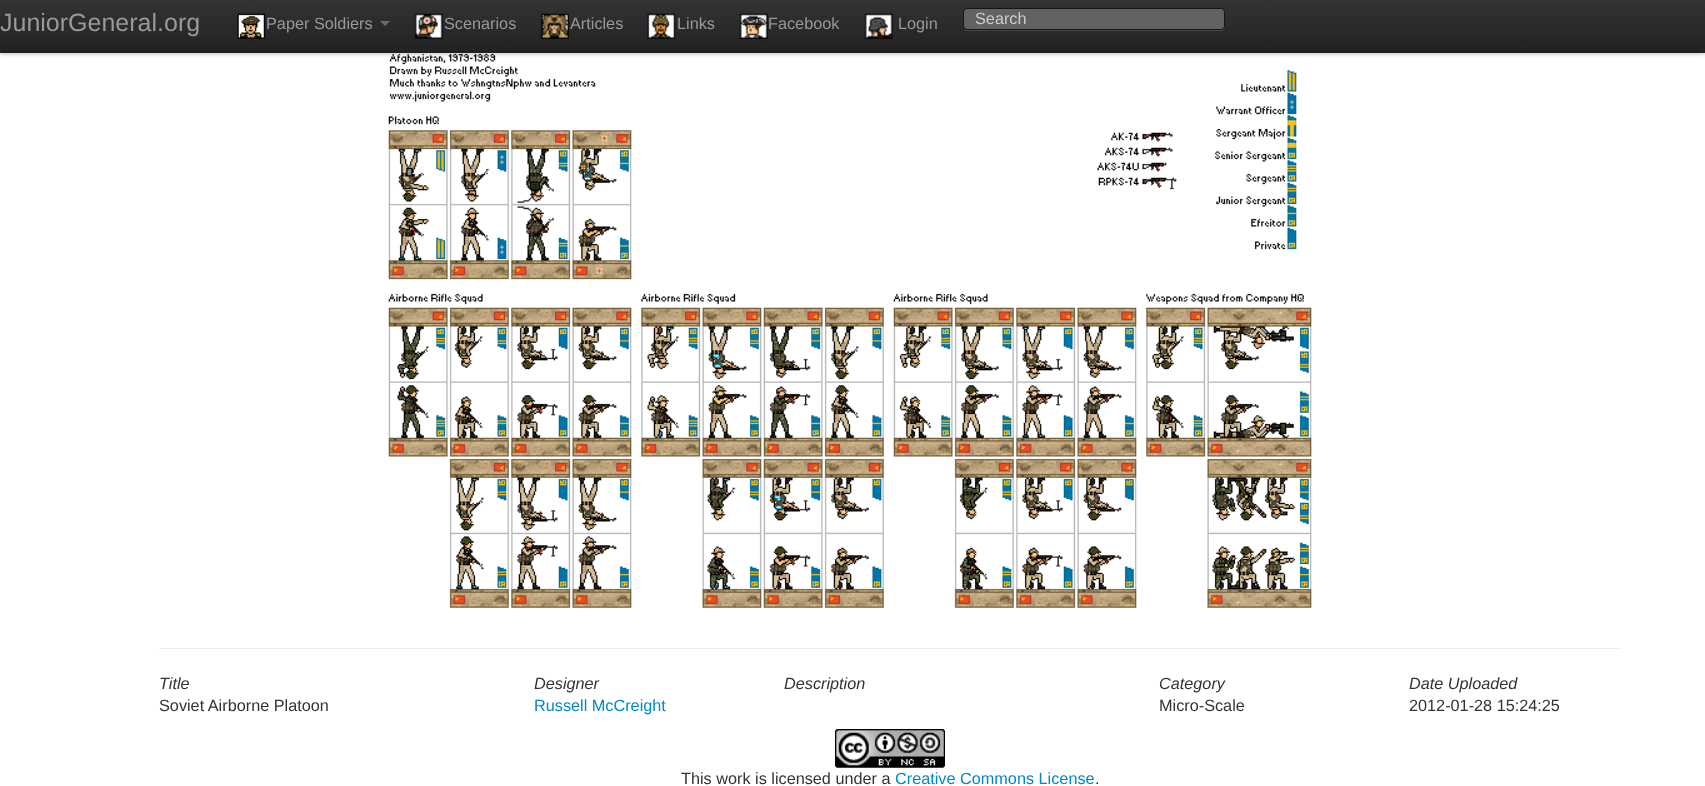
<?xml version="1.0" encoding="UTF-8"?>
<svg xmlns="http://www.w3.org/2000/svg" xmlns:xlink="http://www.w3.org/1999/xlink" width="1705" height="786">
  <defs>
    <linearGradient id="g1" gradientUnits="userSpaceOnUse" x1="853" y1="0" x2="853" y2="53"><stop offset="0" stop-color="#333333" /><stop offset="1" stop-color="#222222" /></linearGradient>
  </defs>
  <rect width="100%" height="100%" fill="#ffffff" />
  <image x="388" y="53" width="924" height="555" xlink:href="image7.png" />
  <rect y="1" width="1705" height="53" fill="#000000" fill-opacity="0.25" filter="blur(2px)" />
  <rect width="1705" height="53" fill="url(#g1)" />
  <rect y="51" width="1705" height="1" fill="#1f1f1f" />
  <image x="237" y="13" width="29" height="26" xlink:href="image1.png" />
  <path d="M 380 21 h 10 l -5 5 z" fill="#6b6b6b" />
  <image x="414" y="13" width="29" height="26" xlink:href="image2.png" />
  <image x="540" y="13" width="29" height="26" xlink:href="image3.png" />
  <image x="647" y="13" width="29" height="26" xlink:href="image4.png" />
  <image x="739" y="13" width="29" height="26" xlink:href="image5.png" />
  <image x="864" y="13" width="29" height="26" xlink:href="image6.png" />
  <path d="M 963 29 c 1 1 2 2 4 2 h 254 c 3 0 4 -2 4 -5 c 0 2 -2 4 -4 4 h -255 c -1 0 -2 -1 -3 -1 z" fill="#494949" />
  <rect x="963.5" y="8.5" width="261" height="21" rx="3.5" fill="#626262" stroke="#151515" />
  <rect x="159" y="648" width="1462" height="1" fill="#eeeeee" />
  <image x="835" y="729" width="110" height="39" xlink:href="image8.png" />
  <text x="0" y="31" style="font-family: Liberation Sans; font-size: 25px; fill: #999999">JuniorGeneral.org</text>
  <text x="266" y="29" style="font-family: Liberation Sans; font-size: 16.25px; fill: #999999">Paper Soldiers</text>
  <text x="444" y="29" style="font-family: Liberation Sans; font-size: 16.25px; fill: #999999">Scenarios</text>
  <text x="570" y="29" style="font-family: Liberation Sans; font-size: 16.25px; fill: #999999">Articles</text>
  <text x="677" y="29" style="font-family: Liberation Sans; font-size: 16.25px; fill: #999999">Links</text>
  <text x="768" y="29" style="font-family: Liberation Sans; font-size: 16.25px; fill: #999999">Facebook</text>
  <text x="898" y="29" style="font-family: Liberation Sans; font-size: 16.25px; fill: #999999">Login</text>
  <text x="975" y="24" style="font-family: Liberation Sans; font-size: 16.25px; fill: #cccccc">Search</text>
  <text x="159" y="689" style="font-family: Liberation Sans; font-size: 16.25px; font-style: italic; fill: #333333">Title</text>
  <text x="159" y="711" style="font-family: Liberation Sans; font-size: 16.25px; fill: #333333">Soviet Airborne Platoon</text>
  <text x="534" y="689" style="font-family: Liberation Sans; font-size: 16.25px; font-style: italic; fill: #333333">Designer</text>
  <text x="534" y="711" style="font-family: Liberation Sans; font-size: 16.25px; fill: #0088cc">Russell McCreight</text>
  <text x="784" y="689" style="font-family: Liberation Sans; font-size: 16.25px; font-style: italic; fill: #333333">Description</text>
  <text x="1159" y="689" style="font-family: Liberation Sans; font-size: 16.25px; font-style: italic; fill: #333333">Category</text>
  <text x="1159" y="711" style="font-family: Liberation Sans; font-size: 16.25px; fill: #333333">Micro-Scale</text>
  <text x="1409" y="689" style="font-family: Liberation Sans; font-size: 16.25px; font-style: italic; fill: #333333">Date Uploaded</text>
  <text x="1409" y="711" style="font-family: Liberation Sans; font-size: 16.25px; fill: #333333">2012-01-28 15:24:25</text>
  <text x="681" y="784" style="font-family: Liberation Sans; font-size: 16.25px; fill: #333333">This work is licensed under a</text>
  <text x="895" y="784" style="font-family: Liberation Sans; font-size: 16.25px; fill: #0088cc">Creative Commons License</text>
  <text x="1095" y="784" style="font-family: Liberation Sans; font-size: 16.25px; fill: #333333">.</text>
</svg>
